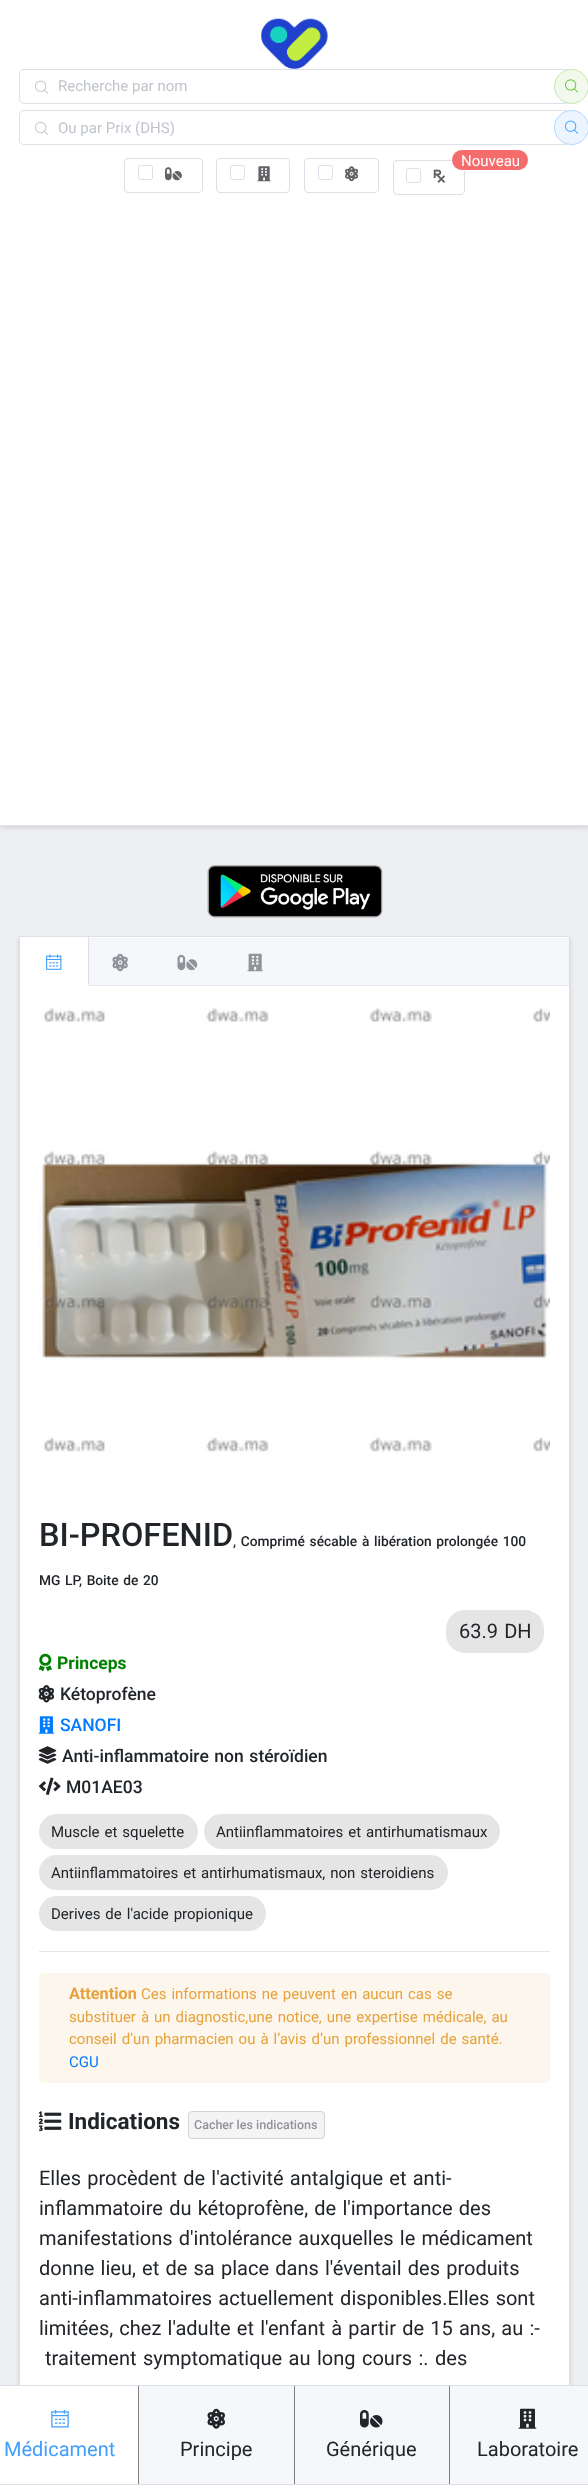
<?xml version="1.0" encoding="UTF-8"?>
<svg xmlns="http://www.w3.org/2000/svg" xmlns:xlink="http://www.w3.org/1999/xlink" width="588" height="2485">
  <defs>
    <clipPath id="clip1"><rect x="58" y="119" width="473" height="17" /></clipPath>
  </defs>
  <rect width="100%" height="100%" fill="#eeeff3" />
  <rect width="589" height="826" fill="#000000" fill-opacity="0.2" filter="blur(3px)" />
  <rect width="588" height="825" fill="#ffffff" />
  <rect y="825" width="588" height="1" fill="#e5e3e3" />
  <image x="261" y="18" width="67" height="51" xlink:href="image1.png" />
  <rect x="19.5" y="69.5" width="550" height="34" rx="4.5" fill="none" stroke="#dcdfe6" />
  <image x="35" y="80" width="13" height="14" xlink:href="image2.png" />
  <circle cx="571.5" cy="86.5" r="17" fill="#f0f9eb" stroke="#c2e7b0" />
  <image x="565" y="79" width="13" height="14" xlink:href="image3.png" />
  <rect x="19.5" y="110.5" width="550" height="34" rx="4.5" fill="none" stroke="#dcdfe6" />
  <image x="35" y="121" width="13" height="14" xlink:href="image4.png" />
  <circle cx="571.5" cy="127.5" r="17" fill="#ecf5ff" stroke="#b3d8ff" />
  <image x="565" y="120" width="14" height="14" xlink:href="image5.png" />
  <rect x="124.5" y="158.5" width="78" height="34" rx="3.5" fill="none" stroke="#dcdfe6" />
  <rect x="138.5" y="165.5" width="14" height="14" rx="2" fill="none" stroke="#dcdfe6" />
  <image x="165" y="167" width="17" height="14" xlink:href="image6.png" />
  <rect x="216.5" y="158.5" width="73" height="34" rx="3.5" fill="none" stroke="#dcdfe6" />
  <rect x="230.5" y="165.5" width="14" height="14" rx="2" fill="none" stroke="#dcdfe6" />
  <image x="257" y="166" width="14" height="16" xlink:href="image7.png" />
  <rect x="304.5" y="158.5" width="74" height="34" rx="3.5" fill="none" stroke="#dcdfe6" />
  <rect x="318.5" y="165.5" width="14" height="14" rx="2" fill="none" stroke="#dcdfe6" />
  <image x="345" y="166" width="14" height="16" xlink:href="image8.png" />
  <rect x="393.5" y="160.5" width="71" height="34" rx="3.5" fill="none" stroke="#dcdfe6" />
  <rect x="406.5" y="168.5" width="14" height="14" rx="2" fill="none" stroke="#dcdfe6" />
  <image x="433" y="169" width="12" height="14" xlink:href="image9.png" />
  <rect x="451.5" y="149.5" width="77" height="21" rx="10.5" fill="#f56c6c" stroke="#ffffff" />
  <image x="207" y="865" width="176" height="53" xlink:href="image10.png" />
  <rect x="19" y="939" width="551" height="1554" fill="#000000" fill-opacity="0.12" filter="blur(2.5px)" />
  <rect x="20" y="937" width="549" height="1448" fill="#ffffff" />
  <rect x="19.5" y="936.5" width="550" height="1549" fill="none" stroke="#dcdfe6" />
  <rect x="89" y="938" width="480" height="47" fill="#f5f7fa" />
  <rect x="89" y="985" width="480" height="1" fill="#e4e7ed" />
  <path d="M 89 936 v 50 l -1 -1 v -47 z" fill="#dcdfe6" />
  <image x="46" y="954" width="16" height="16" xlink:href="image11.png" />
  <image x="112" y="953" width="16" height="19" xlink:href="image12.png" />
  <image x="177" y="954" width="21" height="17" xlink:href="image13.png" />
  <image x="247" y="953" width="16" height="19" xlink:href="image14.png" />
  <image x="39" y="1007" width="511" height="445" xlink:href="image15.png" />
  <rect x="446" y="1610" width="98" height="43" rx="19" fill="#e5e5e5" />
  <image x="38" y="1653" width="14" height="19" xlink:href="image16.png" />
  <image x="38" y="1685" width="16" height="18" xlink:href="image17.png" />
  <image x="38" y="1716" width="17" height="18" xlink:href="image18.png" />
  <image x="38" y="1746" width="19" height="18" xlink:href="image19.png" />
  <image x="38" y="1777" width="23" height="18" xlink:href="image20.png" />
  <rect x="39" y="1814" width="159" height="35" rx="17.5" fill="#e5e5e5" />
  <rect x="204" y="1814" width="296" height="35" rx="17.5" fill="#e5e5e5" />
  <rect x="39" y="1855" width="409" height="35" rx="17.5" fill="#e5e5e5" />
  <rect x="39" y="1896" width="227" height="35" rx="17.5" fill="#e5e5e5" />
  <rect x="39" y="1951" width="511" height="1" fill="#e6e6e6" />
  <rect x="39" y="1973" width="511" height="110" rx="5" fill="#fdf6ec" />
  <image x="38" y="2111" width="24" height="21" xlink:href="image21.png" />
  <rect x="188.5" y="2111.5" width="136" height="27" rx="3.5" fill="#f4f4f5" stroke="#d3d4d6" />
  <rect x="139" y="2386" width="449" height="98" fill="#f5f7fa" />
  <rect x="0.5" y="2385.5" width="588" height="99" fill="none" stroke="#dcdfe6" />
  <rect y="2386" width="138" height="98" fill="#ffffff" />
  <rect x="138" y="2386" width="1" height="98" fill="#808080" />
  <image x="51" y="2410" width="18" height="18" xlink:href="image22.png" />
  <rect x="294" y="2386" width="1" height="98" fill="#808080" />
  <image x="207" y="2408" width="18" height="21" xlink:href="image23.png" />
  <rect x="449" y="2386" width="1" height="98" fill="#808080" />
  <image x="360" y="2410" width="23" height="18" xlink:href="image24.png" />
  <image x="518" y="2408" width="19" height="21" xlink:href="image25.png" />
  <text x="58" y="91" style="font-family: Roboto; font-size: 15px; fill: #c0c4cc">Recherche par nom</text>
  <g clip-path="url(#clip1)">
    <text x="58" y="133" style="font-family: Roboto; font-size: 15px; fill: #c0c4cc">Ou par Prix (DHS)</text>
  </g>
  <text x="461" y="166" style="font-family: Roboto; font-size: 15px; fill: #ffffff">Nouveau</text>
  <text x="39" y="1546" style="font-family: Roboto; font-size: 32.5px; font-weight: 500; fill: #212529">BI-PROFENID</text>
  <text x="233" y="1546" word-spacing="1.25" style="font-family: Roboto; font-size: 13.75px; font-weight: 500; fill: #212529">, Comprimé sécable à libération prolongée 100</text>
  <text x="39" y="1585" word-spacing="1.25" style="font-family: Roboto; font-size: 13.75px; font-weight: 500; fill: #212529">MG LP, Boite de 20</text>
  <text x="459" y="1638" word-spacing="1.25" style="font-family: Roboto; font-size: 20px; fill: #212529">63.9 DH</text>
  <text x="57" y="1669" style="font-family: Roboto; font-size: 17.5px; font-weight: bold; fill: #008000">Princeps</text>
  <text x="60" y="1700" style="font-family: Roboto; font-size: 17.5px; font-weight: 500; fill: #212529">Kétoprofène</text>
  <text x="60" y="1731" style="font-family: Roboto; font-size: 17.5px; font-weight: 500; fill: #007bff">SANOFI</text>
  <text x="62" y="1762" word-spacing="1.25" style="font-family: Roboto; font-size: 17.5px; font-weight: 500; fill: #212529">Anti-inflammatoire non stéroïdien</text>
  <text x="66" y="1793" style="font-family: Roboto; font-size: 17.5px; font-weight: 500; fill: #212529">M01AE03</text>
  <text x="51" y="1837" word-spacing="1.25" style="font-family: Roboto; font-size: 15px; fill: #212529">Muscle et squelette</text>
  <text x="216" y="1837" word-spacing="1.25" style="font-family: Roboto; font-size: 15px; fill: #212529">Antiinflammatoires et antirhumatismaux</text>
  <text x="51" y="1878" word-spacing="1.25" style="font-family: Roboto; font-size: 15px; fill: #212529">Antiinflammatoires et antirhumatismaux, non steroidiens</text>
  <text x="51" y="1919" word-spacing="1.25" style="font-family: Roboto; font-size: 15px; fill: #212529">Derives de l'acide propionique</text>
  <text x="69" y="1999" style="font-family: Roboto; font-size: 16.25px; font-weight: bold; fill: #e6a23c">Attention</text>
  <text x="141" y="1999" word-spacing="1.25" style="font-family: Roboto; font-size: 15px; fill: #e6a23c">Ces informations ne peuvent</text>
  <text x="341" y="1999" word-spacing="1.25" style="font-family: Roboto; font-size: 15px; fill: #e6a23c">en aucun cas se</text>
  <text x="69" y="2022" word-spacing="1.25" style="font-family: Roboto; font-size: 15px; fill: #e6a23c">substituer à un diagnostic,une notice, une expertise médicale, au</text>
  <text x="69" y="2044" word-spacing="1.25" style="font-family: Roboto; font-size: 15px; fill: #e6a23c">conseil d’un pharmacien ou à l’avis d’un professionnel de santé.</text>
  <text x="69" y="2067" style="font-family: Roboto; font-size: 15px; fill: #007bff">CGU</text>
  <text x="68" y="2129" style="font-family: Roboto; font-size: 22.5px; font-weight: bold; fill: #212529">Indications</text>
  <text x="194" y="2129" style="font-family: Roboto; font-size: 12.5px; font-weight: 500; fill: #909399">Cacher les indications</text>
  <text x="39" y="2185" word-spacing="1.25" style="font-family: Roboto; font-size: 20px; fill: #212529">Elles procèdent de l'activité antalgique et anti-</text>
  <text x="39" y="2215" word-spacing="1.25" style="font-family: Roboto; font-size: 20px; fill: #212529">inflammatoire du kétoprofène, de l'importance des</text>
  <text x="39" y="2245" word-spacing="1.25" style="font-family: Roboto; font-size: 20px; fill: #212529">manifestations d'intolérance auxquelles le médicament</text>
  <text x="39" y="2275" word-spacing="1.25" style="font-family: Roboto; font-size: 20px; fill: #212529">donne lieu, et de sa place dans l'éventail des produits</text>
  <text x="39" y="2305" word-spacing="1.25" style="font-family: Roboto; font-size: 20px; fill: #212529">anti-inflammatoires actuellement disponibles.Elles sont</text>
  <text x="39" y="2335" word-spacing="1.25" style="font-family: Roboto; font-size: 20px; fill: #212529">limitées, chez l'adulte et l'enfant à partir de 15 ans, au :-</text>
  <text x="45" y="2365" word-spacing="1.5" style="font-family: Roboto; font-size: 20px; fill: #212529">traitement symptomatique au long cours :. des</text>
  <text x="4" y="2456" style="font-family: Roboto; font-size: 20px; fill: #409eff">Médicament</text>
  <text x="180" y="2456" style="font-family: Roboto; font-size: 20px; fill: #212529">Principe</text>
  <text x="326" y="2456" style="font-family: Roboto; font-size: 20px; fill: #212529">Générique</text>
  <text x="477" y="2456" style="font-family: Roboto; font-size: 20px; fill: #212529">Laboratoire</text>
</svg>
